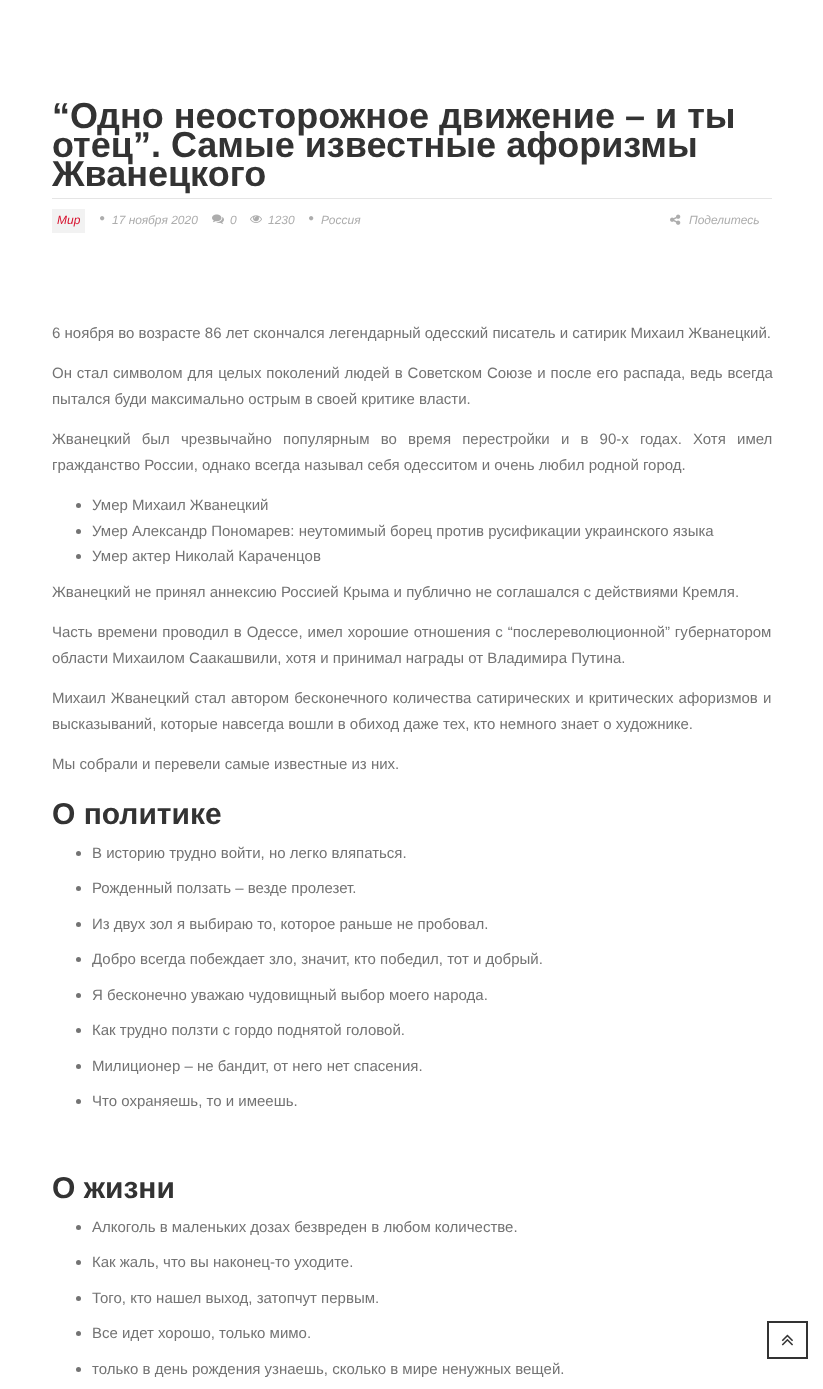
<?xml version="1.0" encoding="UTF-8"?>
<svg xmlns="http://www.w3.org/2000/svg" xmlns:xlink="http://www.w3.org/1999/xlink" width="823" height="1389">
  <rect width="100%" height="100%" fill="#ffffff" />
  <rect x="52" y="198" width="720" height="1" fill="#e5e5e5" />
  <rect x="52" y="209" width="33" height="24" fill="#f2f2f2" />
  <image x="100" y="216" width="5" height="5" xlink:href="image1.png" />
  <image x="212" y="214" width="12" height="10" xlink:href="image2.png" />
  <image x="250" y="215" width="12" height="8" xlink:href="image3.png" />
  <image x="309" y="216" width="5" height="5" xlink:href="image1.png" />
  <image x="670" y="214" width="11" height="11" xlink:href="image4.png" />
  <circle cx="78.5" cy="505.5" r="2.5" fill="#737373" />
  <circle cx="78.5" cy="531.5" r="2.5" fill="#737373" />
  <circle cx="78.5" cy="556.5" r="2.5" fill="#737373" />
  <circle cx="78.5" cy="853.5" r="2.5" fill="#737373" />
  <circle cx="78.5" cy="888.5" r="2.5" fill="#737373" />
  <circle cx="78.5" cy="924.5" r="2.5" fill="#737373" />
  <circle cx="78.5" cy="959.5" r="2.5" fill="#737373" />
  <circle cx="78.5" cy="995.5" r="2.5" fill="#737373" />
  <circle cx="78.5" cy="1030.5" r="2.5" fill="#737373" />
  <circle cx="78.5" cy="1066.5" r="2.5" fill="#737373" />
  <circle cx="78.5" cy="1101.5" r="2.5" fill="#737373" />
  <circle cx="78.5" cy="1227.5" r="2.5" fill="#737373" />
  <circle cx="78.5" cy="1262.5" r="2.5" fill="#737373" />
  <circle cx="78.5" cy="1298.5" r="2.5" fill="#737373" />
  <circle cx="78.5" cy="1333.5" r="2.5" fill="#737373" />
  <circle cx="78.5" cy="1369.5" r="2.5" fill="#737373" />
  <rect x="768" y="1322" width="39" height="36" fill="none" stroke="#333333" stroke-width="2" />
  <image x="781" y="1334" width="12" height="12" xlink:href="image5.png" />
  <text x="52" y="128" style="font-family: Liberation Sans; font-size: 36px; font-weight: bold; fill: #333333">“Одно неосторожное движение – и ты</text>
  <text x="52" y="157" style="font-family: Liberation Sans; font-size: 36px; font-weight: bold; fill: #333333">отец”. Самые известные афоризмы</text>
  <text x="52" y="186" style="font-family: Liberation Sans; font-size: 36px; font-weight: bold; fill: #333333">Жванецкого</text>
  <text x="57" y="224" style="font-family: Liberation Sans; font-size: 12px; font-style: italic; fill: #d7122e">Мир</text>
  <text x="112" y="224" style="font-family: Liberation Sans; font-size: 12px; font-style: italic; fill: #adadad">17 ноября 2020</text>
  <text x="230" y="224" style="font-family: Liberation Sans; font-size: 12px; font-style: italic; fill: #adadad">0</text>
  <text x="268" y="224" style="font-family: Liberation Sans; font-size: 12px; font-style: italic; fill: #adadad">1230</text>
  <text x="321" y="224" style="font-family: Liberation Sans; font-size: 12px; font-style: italic; fill: #adadad">Россия</text>
  <text x="689" y="224" style="font-family: Liberation Sans; font-size: 12px; font-style: italic; fill: #adadad">Поделитесь</text>
  <text x="52" y="338" style="font-family: Liberation Sans; font-size: 15px; fill: #737373">6 ноября во возрасте 86 лет скончался легендарный одесский писатель и сатирик Михаил Жванецкий.</text>
  <text x="52" y="378" word-spacing="0.75" style="font-family: Liberation Sans; font-size: 15px; fill: #737373">Он стал символом для целых поколений людей в Советском Союзе и после его распада, ведь всегда</text>
  <text x="52" y="404" style="font-family: Liberation Sans; font-size: 15px; fill: #737373">пытался буди максимально острым в своей критике власти.</text>
  <text x="52" y="444" word-spacing="7" style="font-family: Liberation Sans; font-size: 15px; fill: #737373">Жванецкий был чрезвычайно популярным во время перестройки и в 90-х годах. Хотя имел</text>
  <text x="52" y="470" style="font-family: Liberation Sans; font-size: 15px; fill: #737373">гражданство России, однако всегда называл себя одесситом и очень любил родной город.</text>
  <text x="92" y="510" style="font-family: Liberation Sans; font-size: 15px; fill: #737373">Умер Михаил Жванецкий</text>
  <text x="92" y="536" style="font-family: Liberation Sans; font-size: 15px; fill: #737373">Умер Александр Пономарев: неутомимый борец против русификации украинского языка</text>
  <text x="92" y="561" style="font-family: Liberation Sans; font-size: 15px; fill: #737373">Умер актер Николай Караченцов</text>
  <text x="52" y="597" style="font-family: Liberation Sans; font-size: 15px; fill: #737373">Жванецкий не принял аннексию Россией Крыма и публично не соглашался с действиями Кремля.</text>
  <text x="52" y="637" word-spacing="0.75" style="font-family: Liberation Sans; font-size: 15px; fill: #737373">Часть времени проводил в Одессе, имел хорошие отношения с “послереволюционной” губернатором</text>
  <text x="52" y="663" style="font-family: Liberation Sans; font-size: 15px; fill: #737373">области Михаилом Саакашвили, хотя и принимал награды от Владимира Путина.</text>
  <text x="52" y="703" word-spacing="1" style="font-family: Liberation Sans; font-size: 15px; fill: #737373">Михаил Жванецкий стал автором бесконечного количества сатирических и критических афоризмов и</text>
  <text x="52" y="729" style="font-family: Liberation Sans; font-size: 15px; fill: #737373">высказываний, которые навсегда вошли в обиход даже тех, кто немного знает о художнике.</text>
  <text x="52" y="769" style="font-family: Liberation Sans; font-size: 15px; fill: #737373">Мы собрали и перевели самые известные из них.</text>
  <text x="52" y="824" style="font-family: Liberation Sans; font-size: 30px; font-weight: bold; fill: #333333">О политике</text>
  <text x="92" y="858" style="font-family: Liberation Sans; font-size: 15px; fill: #737373">В историю трудно войти, но легко вляпаться.</text>
  <text x="92" y="893" style="font-family: Liberation Sans; font-size: 15px; fill: #737373">Рожденный ползать – везде пролезет.</text>
  <text x="92" y="929" style="font-family: Liberation Sans; font-size: 15px; fill: #737373">Из двух зол я выбираю то, которое раньше не пробовал.</text>
  <text x="92" y="964" style="font-family: Liberation Sans; font-size: 15px; fill: #737373">Добро всегда побеждает зло, значит, кто победил, тот и добрый.</text>
  <text x="92" y="1000" style="font-family: Liberation Sans; font-size: 15px; fill: #737373">Я бесконечно уважаю чудовищный выбор моего народа.</text>
  <text x="92" y="1035" style="font-family: Liberation Sans; font-size: 15px; fill: #737373">Как трудно ползти с гордо поднятой головой.</text>
  <text x="92" y="1071" style="font-family: Liberation Sans; font-size: 15px; fill: #737373">Милиционер – не бандит, от него нет спасения.</text>
  <text x="92" y="1106" style="font-family: Liberation Sans; font-size: 15px; fill: #737373">Что охраняешь, то и имеешь.</text>
  <text x="52" y="1198" style="font-family: Liberation Sans; font-size: 30px; font-weight: bold; fill: #333333">О жизни</text>
  <text x="92" y="1232" style="font-family: Liberation Sans; font-size: 15px; fill: #737373">Алкоголь в маленьких дозах безвреден в любом количестве.</text>
  <text x="92" y="1267" style="font-family: Liberation Sans; font-size: 15px; fill: #737373">Как жаль, что вы наконец-то уходите.</text>
  <text x="92" y="1303" style="font-family: Liberation Sans; font-size: 15px; fill: #737373">Того, кто нашел выход, затопчут первым.</text>
  <text x="92" y="1338" style="font-family: Liberation Sans; font-size: 15px; fill: #737373">Все идет хорошо, только мимо.</text>
  <text x="92" y="1374" style="font-family: Liberation Sans; font-size: 15px; fill: #737373">только в день рождения узнаешь, сколько в мире ненужных вещей.</text>
</svg>
